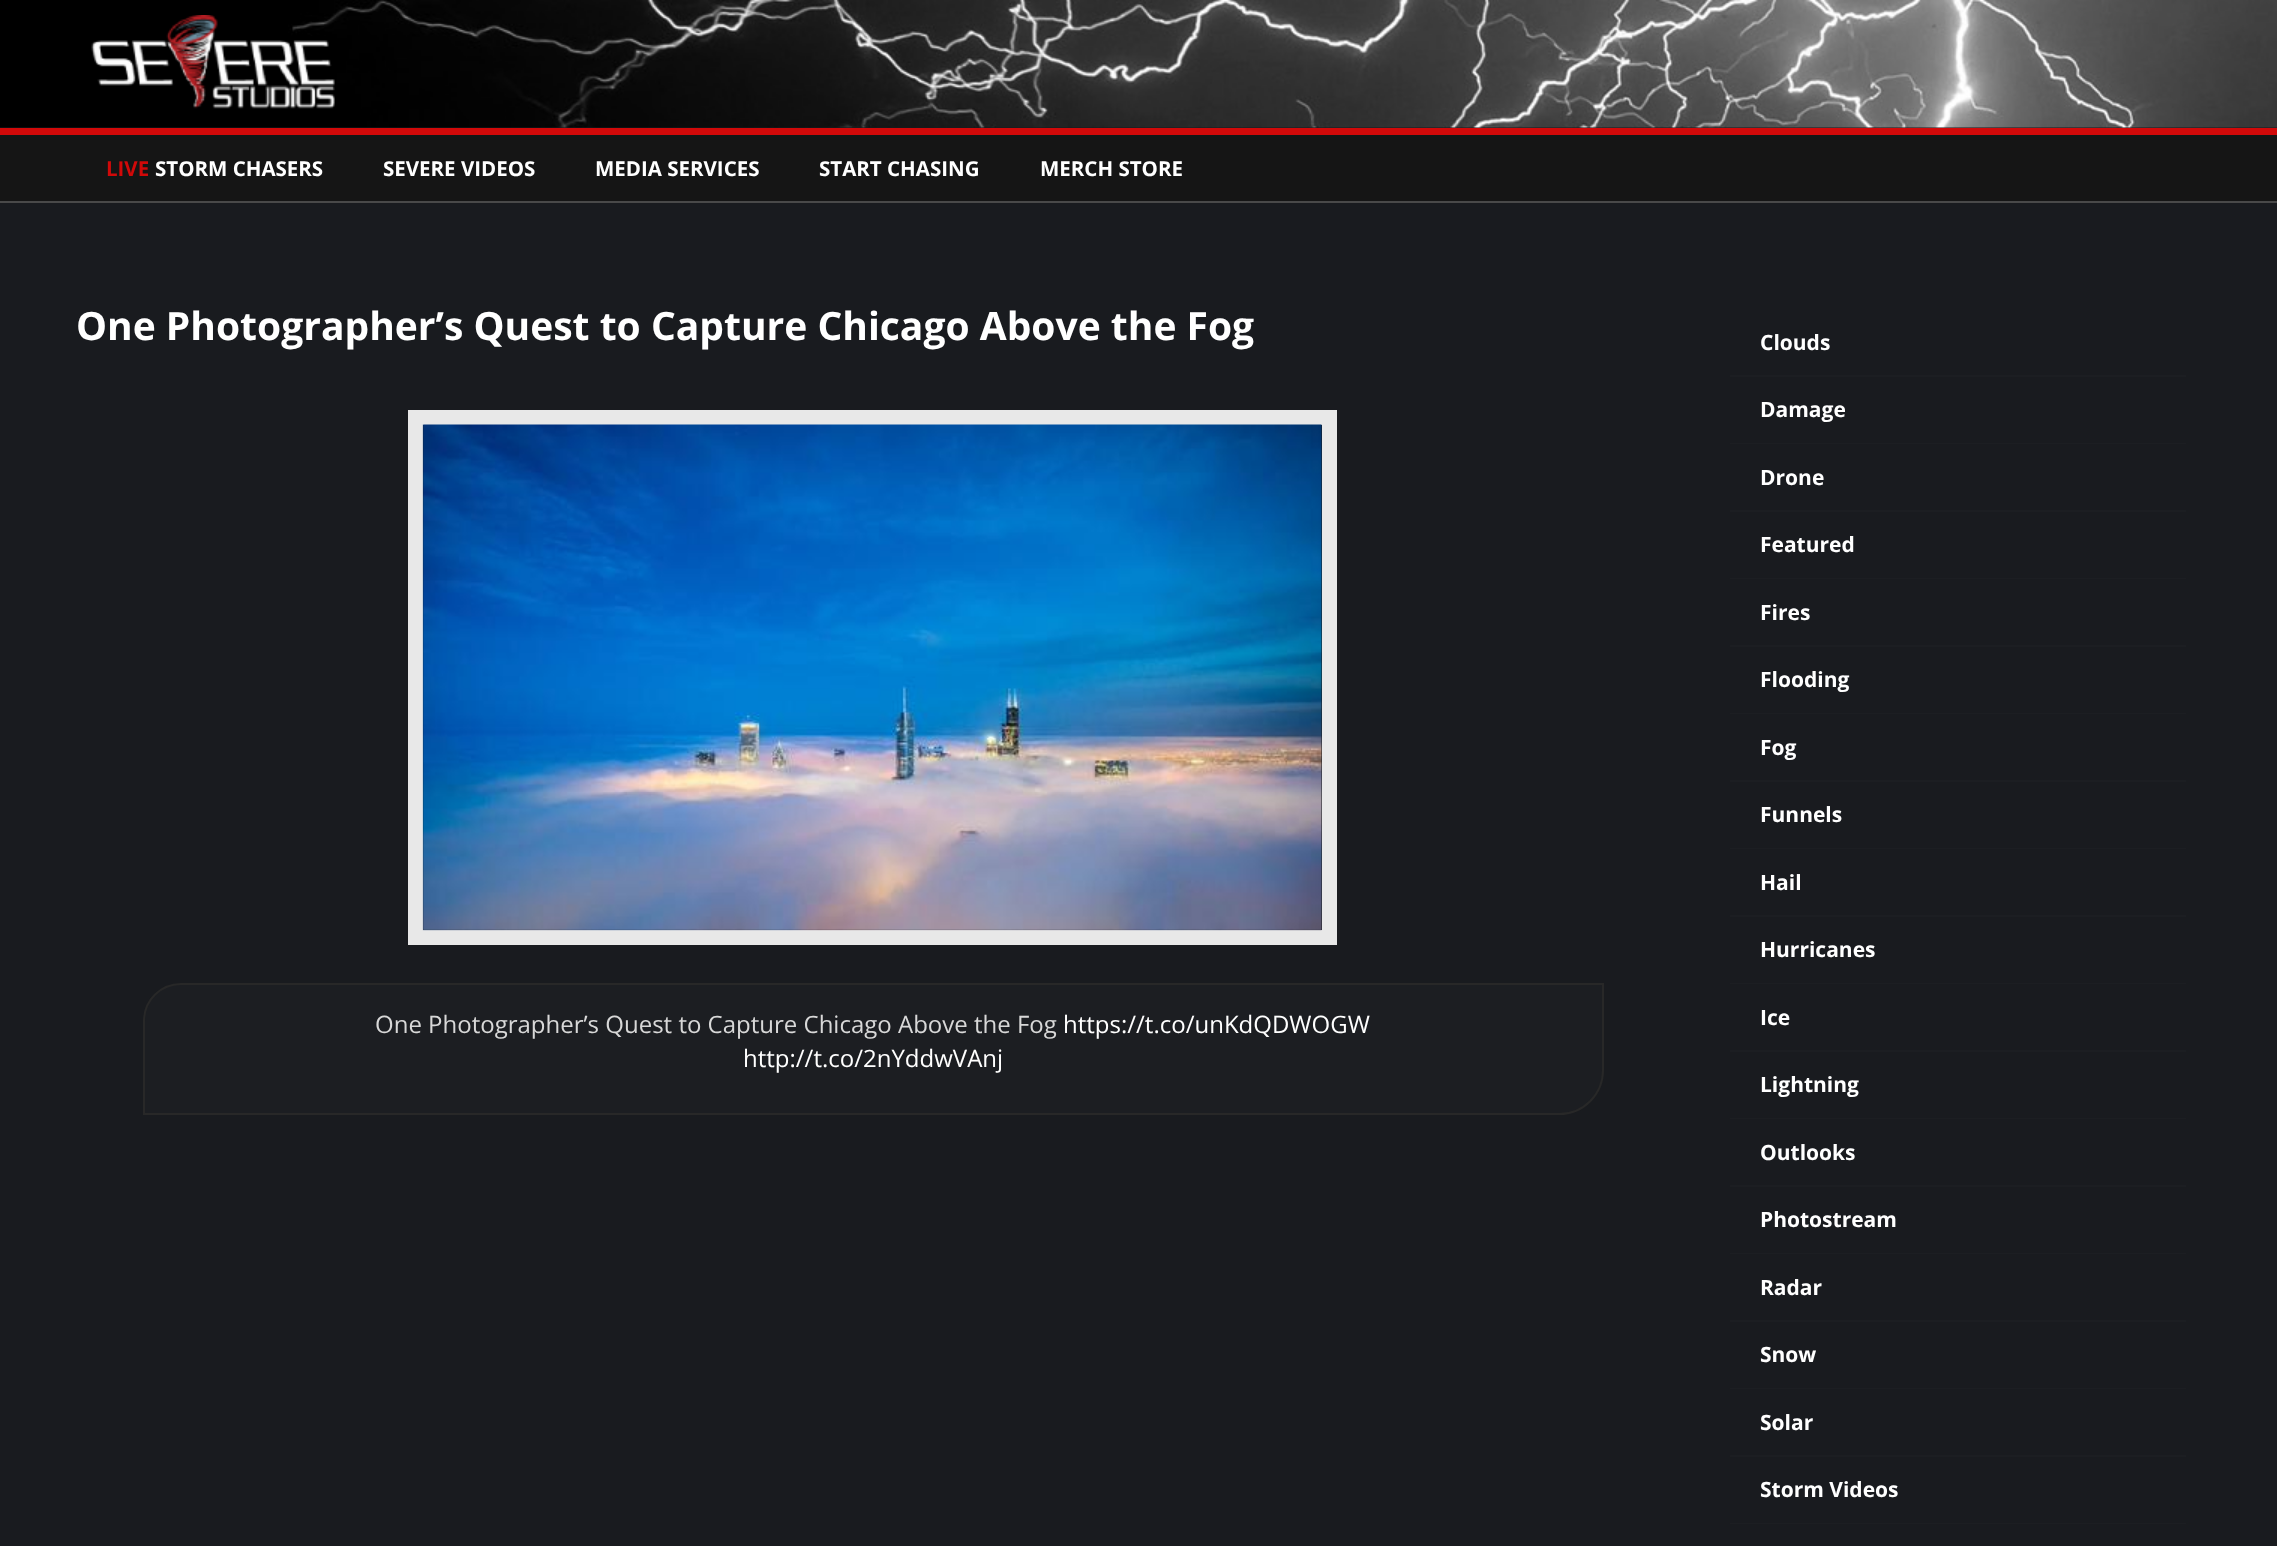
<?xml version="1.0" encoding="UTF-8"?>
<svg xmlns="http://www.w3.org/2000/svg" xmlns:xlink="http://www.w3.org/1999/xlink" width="2277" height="1546">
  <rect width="100%" height="100%" fill="#191b1f" />
  <image x="0" y="0" width="2277" height="128" xlink:href="image1.png" />
  <image x="91" y="15" width="244" height="94" xlink:href="image2.png" />
  <rect y="135" width="2277" height="66" fill="#151515" />
  <rect y="128" width="2277" height="7" fill="#d10909" />
  <rect y="201" width="2277" height="2" fill="#494949" />
  <rect x="415.5" y="417.5" width="914" height="520" fill="none" stroke="#e8e8e8" stroke-width="15" />
  <image x="422" y="424" width="900" height="507" xlink:href="image3.png" />
  <path d="M 181 984 h 1422 v 86 c 0 24.5 -19.5 44 -44 44 h -1415 v -93 c 0 -20.5 16.5 -37 37 -37 z" fill="#1c1e22" stroke="#282828" stroke-width="2" />
  <rect x="1730" y="375" width="456" height="2" fill="#1c1e22" />
  <rect x="1730" y="443" width="456" height="1" fill="#1c1e22" />
  <rect x="1730" y="510" width="456" height="2" fill="#1c1e22" />
  <rect x="1730" y="578" width="456" height="1" fill="#1c1e22" />
  <rect x="1730" y="645" width="456" height="2" fill="#1c1e22" />
  <rect x="1730" y="713" width="456" height="1" fill="#1c1e22" />
  <rect x="1730" y="780" width="456" height="2" fill="#1c1e22" />
  <rect x="1730" y="848" width="456" height="1" fill="#1c1e22" />
  <rect x="1730" y="915" width="456" height="2" fill="#1c1e22" />
  <rect x="1730" y="983" width="456" height="1" fill="#1c1e22" />
  <rect x="1730" y="1050" width="456" height="2" fill="#1c1e22" />
  <rect x="1730" y="1118" width="456" height="1" fill="#1c1e22" />
  <rect x="1730" y="1185" width="456" height="2" fill="#1c1e22" />
  <rect x="1730" y="1253" width="456" height="1" fill="#1c1e22" />
  <rect x="1730" y="1320" width="456" height="2" fill="#1c1e22" />
  <rect x="1730" y="1388" width="456" height="1" fill="#1c1e22" />
  <rect x="1730" y="1455" width="456" height="2" fill="#1c1e22" />
  <rect x="1730" y="1523" width="456" height="1" fill="#1c1e22" />
  <text x="106" y="176" style="font-family: Open Sans; font-size: 20.5px; font-weight: bold; fill: #d10909">LIVE</text>
  <text x="155" y="176" style="font-family: Open Sans; font-size: 20.5px; font-weight: bold; fill: #ffffff">STORM CHASERS</text>
  <text x="383" y="176" style="font-family: Open Sans; font-size: 20.5px; font-weight: bold; fill: #ffffff">SEVERE VIDEOS</text>
  <text x="595" y="176" style="font-family: Open Sans; font-size: 20.5px; font-weight: bold; fill: #ffffff">MEDIA SERVICES</text>
  <text x="819" y="176" style="font-family: Open Sans; font-size: 20.5px; font-weight: bold; fill: #ffffff">START CHASING</text>
  <text x="1040" y="176" style="font-family: Open Sans; font-size: 20.5px; font-weight: bold; fill: #ffffff">MERCH STORE</text>
  <text x="76" y="340" style="font-family: Open Sans; font-size: 39px; font-weight: bold; fill: #ffffff">One Photographer’s Quest to Capture Chicago Above the Fog</text>
  <text x="375" y="1033" style="font-family: Open Sans; font-size: 24px; fill: #d8d8d8">One Photographer’s Quest to Capture Chicago Above the Fog</text>
  <text x="1063" y="1033" style="font-family: Open Sans; font-size: 24px; fill: #ffffff">https://t.co/unKdQDWOGW</text>
  <text x="743" y="1067" style="font-family: Open Sans; font-size: 24px; fill: #ffffff">http://t.co/2nYddwVAnj</text>
  <text x="1760" y="350" style="font-family: Open Sans; font-size: 21px; font-weight: bold; fill: #ffffff">Clouds</text>
  <text x="1760" y="417" style="font-family: Open Sans; font-size: 21px; font-weight: bold; fill: #ffffff">Damage</text>
  <text x="1760" y="485" style="font-family: Open Sans; font-size: 21px; font-weight: bold; fill: #ffffff">Drone</text>
  <text x="1760" y="552" style="font-family: Open Sans; font-size: 21px; font-weight: bold; fill: #ffffff">Featured</text>
  <text x="1760" y="620" style="font-family: Open Sans; font-size: 21px; font-weight: bold; fill: #ffffff">Fires</text>
  <text x="1760" y="687" style="font-family: Open Sans; font-size: 21px; font-weight: bold; fill: #ffffff">Flooding</text>
  <text x="1760" y="755" style="font-family: Open Sans; font-size: 21px; font-weight: bold; fill: #ffffff">Fog</text>
  <text x="1760" y="822" style="font-family: Open Sans; font-size: 21px; font-weight: bold; fill: #ffffff">Funnels</text>
  <text x="1760" y="890" style="font-family: Open Sans; font-size: 21px; font-weight: bold; fill: #ffffff">Hail</text>
  <text x="1760" y="957" style="font-family: Open Sans; font-size: 21px; font-weight: bold; fill: #ffffff">Hurricanes</text>
  <text x="1760" y="1025" style="font-family: Open Sans; font-size: 21px; font-weight: bold; fill: #ffffff">Ice</text>
  <text x="1760" y="1092" style="font-family: Open Sans; font-size: 21px; font-weight: bold; fill: #ffffff">Lightning</text>
  <text x="1760" y="1160" style="font-family: Open Sans; font-size: 21px; font-weight: bold; fill: #ffffff">Outlooks</text>
  <text x="1760" y="1227" style="font-family: Open Sans; font-size: 21px; font-weight: bold; fill: #ffffff">Photostream</text>
  <text x="1760" y="1295" style="font-family: Open Sans; font-size: 21px; font-weight: bold; fill: #ffffff">Radar</text>
  <text x="1760" y="1362" style="font-family: Open Sans; font-size: 21px; font-weight: bold; fill: #ffffff">Snow</text>
  <text x="1760" y="1430" style="font-family: Open Sans; font-size: 21px; font-weight: bold; fill: #ffffff">Solar</text>
  <text x="1760" y="1497" style="font-family: Open Sans; font-size: 21px; font-weight: bold; fill: #ffffff">Storm Videos</text>
</svg>
